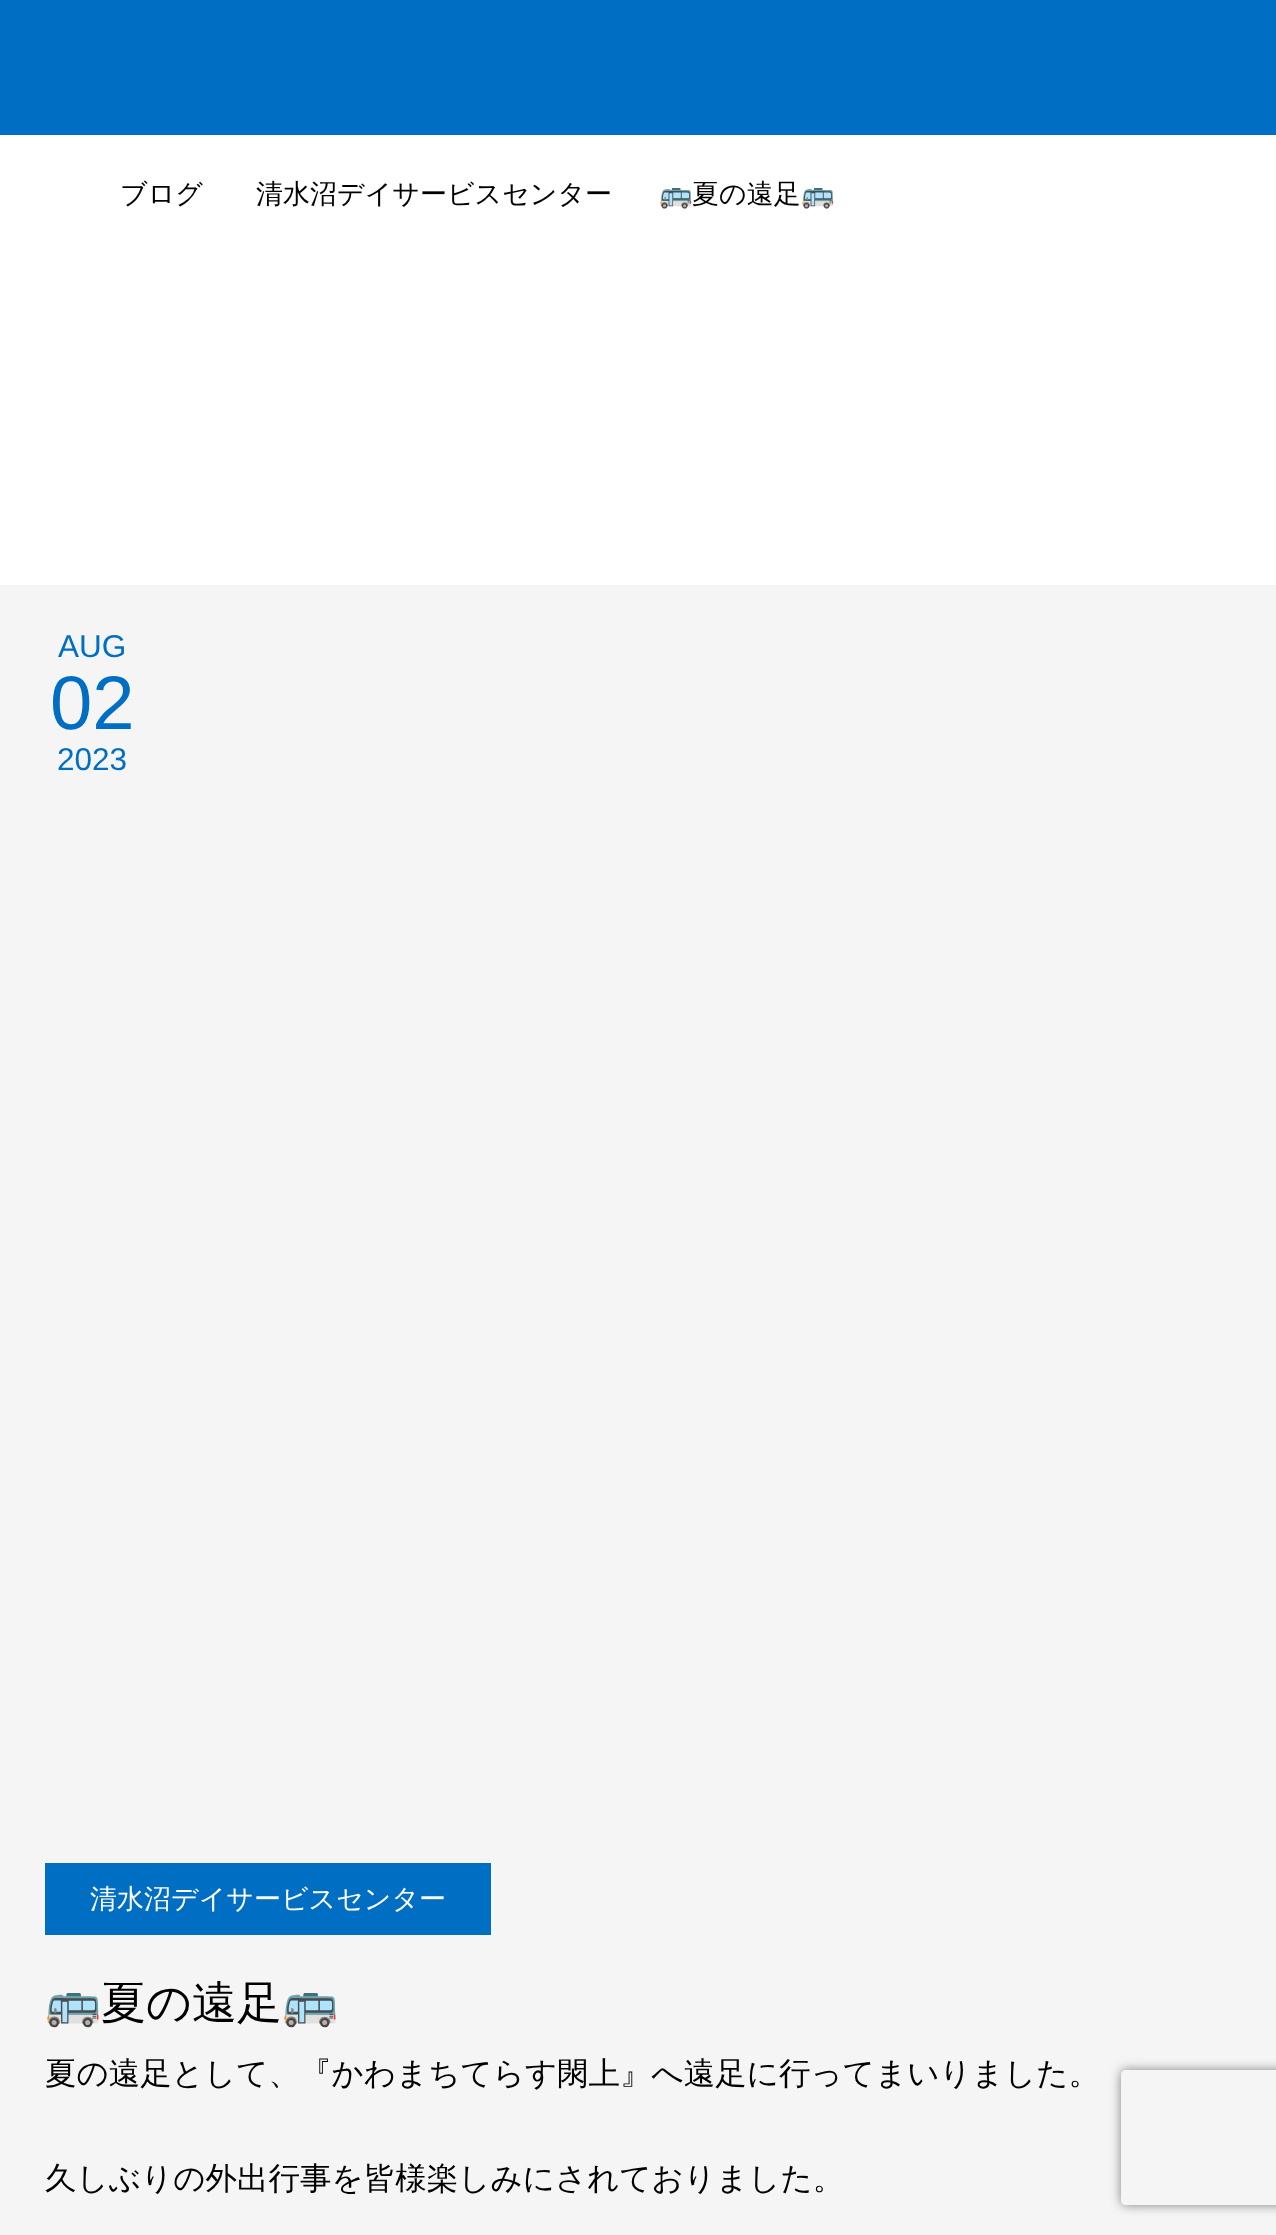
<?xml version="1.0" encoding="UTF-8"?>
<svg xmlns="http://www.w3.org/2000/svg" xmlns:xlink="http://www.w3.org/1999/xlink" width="1276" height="2235">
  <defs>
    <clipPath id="clip1"><path d="M 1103 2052 h 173 v 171 h -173 z m 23 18 h 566 c 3 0 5 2 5 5 v 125 c 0 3 -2 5 -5 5 h -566 c -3 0 -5 -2 -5 -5 v -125 c 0 -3 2 -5 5 -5 z" clip-rule="evenodd" /></clipPath>
  </defs>
  <rect width="100%" height="100%" fill="#ffffff" />
  <rect width="1276" height="135" fill="#006fc3" />
  <rect y="585" width="1276" height="1650" fill="#f5f5f5" />
  <rect x="45" y="1863" width="446" height="72" fill="#006fc3" />
  <g clip-path="url(#clip1)">
    <rect x="1121" y="2070" width="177" height="135" rx="5" fill="#808080" filter="blur(5.5px)" />
  </g>
  <text x="120" y="203" style="font-family: WenQuanYi Zen Hei; font-size: 27px; font-weight: 500; fill: #000000">ブログ</text>
  <text x="256" y="203" style="font-family: WenQuanYi Zen Hei; font-size: 27px; font-weight: 500; fill: #000000">清水沼デイサービスセンター</text>
  <text x="659" y="203" style="font-family: Noto Color Emoji; font-size: 27px; fill: #000000">🚌</text>
  <text x="692" y="203" style="font-family: WenQuanYi Zen Hei; font-size: 27px; font-weight: 500; fill: #000000">夏の遠足</text>
  <text x="801" y="203" style="font-family: Noto Color Emoji; font-size: 27px; fill: #000000">🚌</text>
  <text x="58" y="657" style="font-family: Liberation Sans; font-size: 31.5px; fill: #006fc3">AUG</text>
  <text x="50" y="729" style="font-family: Liberation Sans; font-size: 76px; fill: #006fc3">02</text>
  <text x="57" y="770" style="font-family: Liberation Sans; font-size: 31.5px; fill: #006fc3">2023</text>
  <text x="90" y="1908" style="font-family: WenQuanYi Zen Hei; font-size: 27px; font-weight: 500; fill: #ffffff">清水沼デイサービスセンター</text>
  <text x="45" y="2018" style="font-family: Noto Color Emoji; font-size: 45px; fill: #000000">🚌</text>
  <text x="101" y="2018" style="font-family: WenQuanYi Zen Hei; font-size: 45px; font-weight: 500; fill: #000000">夏の遠足</text>
  <text x="282" y="2018" style="font-family: Noto Color Emoji; font-size: 45px; fill: #000000">🚌</text>
  <text x="45" y="2084" style="font-family: WenQuanYi Zen Hei; font-size: 31.5px; font-weight: 500; fill: #000000">夏の遠足として、『かわまちてらす閖上』へ遠足に行ってまいりました。</text>
  <text x="45" y="2189" style="font-family: WenQuanYi Zen Hei; font-size: 31.5px; font-weight: 500; fill: #000000">久しぶりの外出行事を皆様楽しみにされておりました。</text>
</svg>
